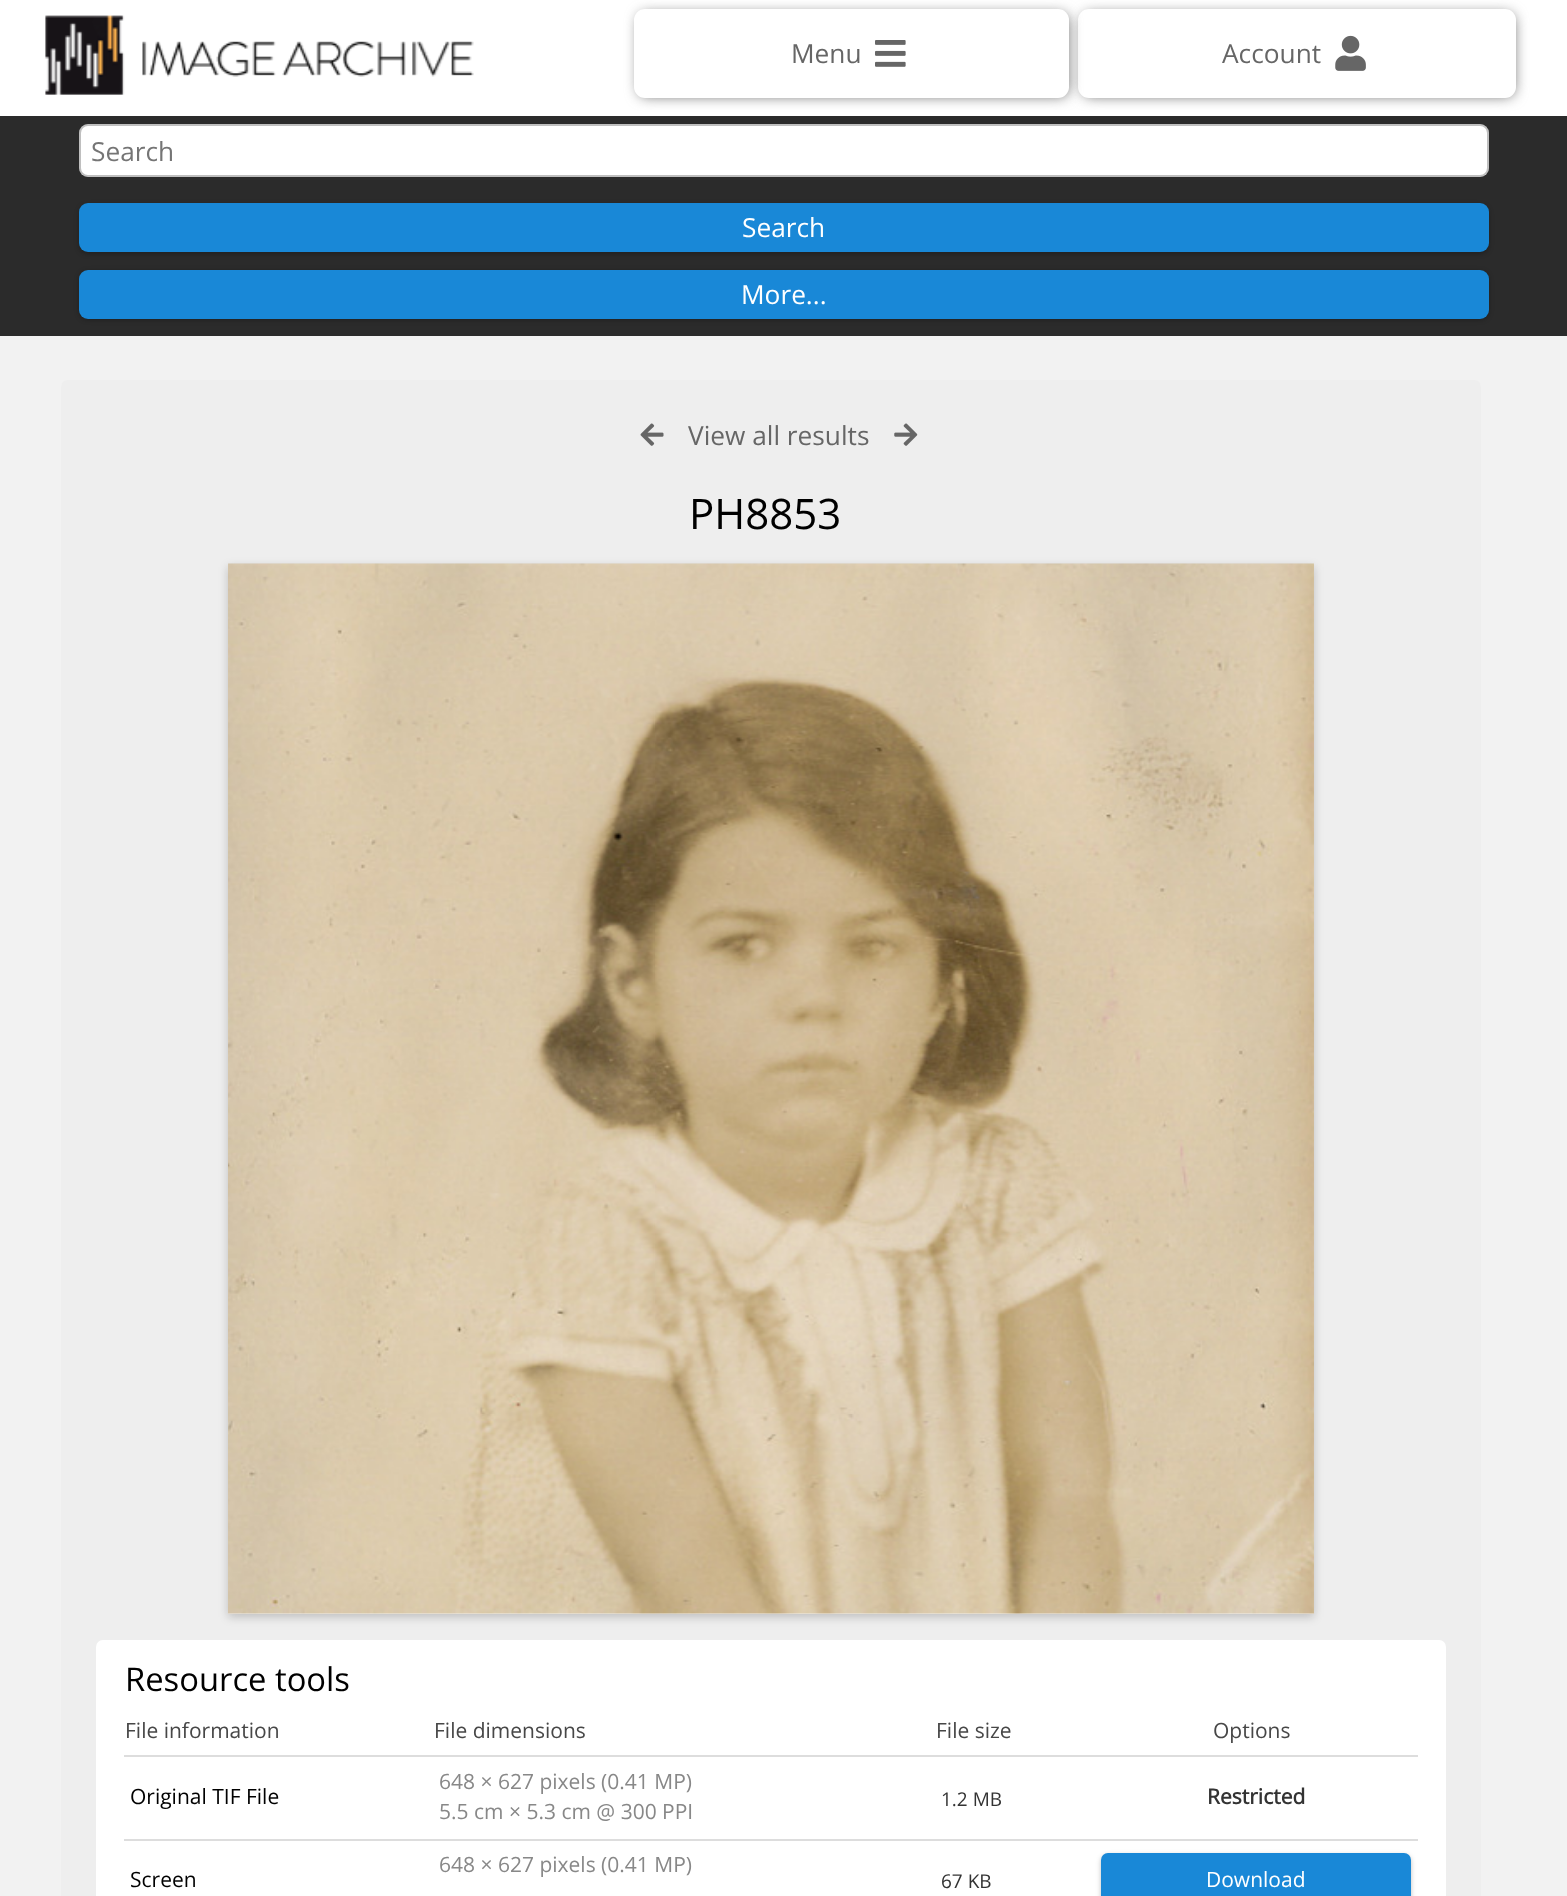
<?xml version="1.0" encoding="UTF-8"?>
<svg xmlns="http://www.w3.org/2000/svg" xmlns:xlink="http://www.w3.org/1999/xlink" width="1567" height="1896">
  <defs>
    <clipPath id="clip1"><path d="M 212 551 h 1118 v 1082 h -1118 z m 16 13 h 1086 v 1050 h -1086 z" clip-rule="evenodd" /></clipPath>
  </defs>
  <rect width="100%" height="100%" fill="#f2f2f2" />
  <rect width="1567" height="116" fill="#ffffff" />
  <image x="45" y="15" width="429" height="80" xlink:href="image1.png" />
  <rect x="1083" y="14" width="431" height="82" rx="7" fill="#666666" filter="blur(7px)" />
  <rect x="1078" y="9" width="438" height="89" rx="11" fill="#ffffff" />
  <rect x="639" y="14" width="429" height="82" rx="7" fill="#666666" filter="blur(7px)" />
  <rect x="634" y="9" width="435" height="89" rx="11" fill="#ffffff" />
  <image x="875" y="40" width="31" height="27" xlink:href="image2.png" />
  <image x="1335" y="35" width="31" height="36" xlink:href="image3.png" />
  <rect y="116" width="1567" height="220" fill="#2b2b2b" />
  <rect x="79" y="124" width="1410" height="53" rx="9" fill="#ffffff" />
  <rect x="80" y="125" width="1408" height="51" rx="8" fill="none" stroke="#000000" stroke-opacity="0.25" stroke-width="2" />
  <rect x="79" y="205" width="1410" height="49" rx="9" fill="#000000" fill-opacity="0.25" filter="blur(2.5px)" />
  <rect x="79" y="203" width="1410" height="49" rx="9" fill="#1988d7" />
  <rect x="79" y="271" width="1410" height="49" rx="9" fill="#000000" fill-opacity="0.25" filter="blur(2.5px)" />
  <rect x="79" y="270" width="1410" height="49" rx="9" fill="#1988d7" />
  <rect x="61" y="380" width="1420" height="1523" rx="7" fill="#eeeeee" />
  <image x="640" y="423" width="24" height="23" xlink:href="image4.png" />
  <image x="894" y="423" width="24" height="23" xlink:href="image5.png" />
  <g clip-path="url(#clip1)">
    <rect x="228" y="567" width="1086" height="1050" fill="#000000" fill-opacity="0.2" filter="blur(5px)" />
  </g>
  <image x="228" y="563" width="1086" height="1051" xlink:href="image6.png" />
  <rect x="96" y="1640" width="1350" height="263" rx="7" fill="#ffffff" />
  <rect x="124" y="1755" width="1294" height="2" fill="#dddddd" />
  <rect x="124" y="1839" width="1294" height="2" fill="#dddddd" />
  <rect x="1101" y="1855" width="310" height="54" rx="7" fill="#000000" fill-opacity="0.25" filter="blur(2.5px)" />
  <rect x="1101" y="1853" width="310" height="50" rx="7" fill="#1988d7" />
  <text x="791" y="63" style="font-family: Open Sans; font-size: 26.25px; fill: #666666">Menu</text>
  <text x="1222" y="63" style="font-family: Open Sans; font-size: 26.25px; fill: #666666">Account</text>
  <text x="91" y="161" style="font-family: Open Sans; font-size: 26.25px; fill: #757575">Search</text>
  <text x="742" y="237" style="font-family: Open Sans; font-size: 26.25px; fill: #ffffff">Search</text>
  <text x="741" y="304" style="font-family: Open Sans; font-size: 26.25px; fill: #ffffff">More...</text>
  <text x="688" y="445" style="font-family: Open Sans; font-size: 26.25px; fill: #666666">View all results</text>
  <text x="689" y="529" style="font-family: Open Sans; font-size: 42px; fill: #000000">PH8853</text>
  <text x="125" y="1691" style="font-family: Open Sans; font-size: 32.75px; fill: #000000">Resource tools</text>
  <text x="125" y="1738" style="font-family: Open Sans; font-size: 21px; fill: #474747">File information</text>
  <text x="434" y="1738" style="font-family: Open Sans; font-size: 21px; fill: #474747">File dimensions</text>
  <text x="936" y="1738" style="font-family: Open Sans; font-size: 21px; fill: #474747">File size</text>
  <text x="1213" y="1738" style="font-family: Open Sans; font-size: 21px; fill: #474747">Options</text>
  <text x="130" y="1804" style="font-family: Open Sans; font-size: 21px; fill: #000000">Original TIF File</text>
  <text x="439" y="1789" style="font-family: Open Sans; font-size: 21px; fill: #888888">648 × 627 pixels (0.41 MP)</text>
  <text x="439" y="1819" style="font-family: Open Sans; font-size: 21px; fill: #888888">5.5 cm × 5.3 cm @ 300 PPI</text>
  <text x="941" y="1806" style="font-family: Open Sans; font-size: 19px; fill: #333333">1.2 MB</text>
  <text x="1207" y="1804" style="font-family: Open Sans; font-size: 21px; font-weight: bold; fill: #333333">Restricted</text>
  <text x="439" y="1872" style="font-family: Open Sans; font-size: 21px; fill: #888888">648 × 627 pixels (0.41 MP)</text>
  <text x="130" y="1887" style="font-family: Open Sans; font-size: 21px; fill: #000000">Screen</text>
  <text x="941" y="1888" style="font-family: Open Sans; font-size: 19px; fill: #333333">67 KB</text>
  <text x="1206" y="1887" style="font-family: Open Sans; font-size: 21px; fill: #ffffff">Download</text>
</svg>
